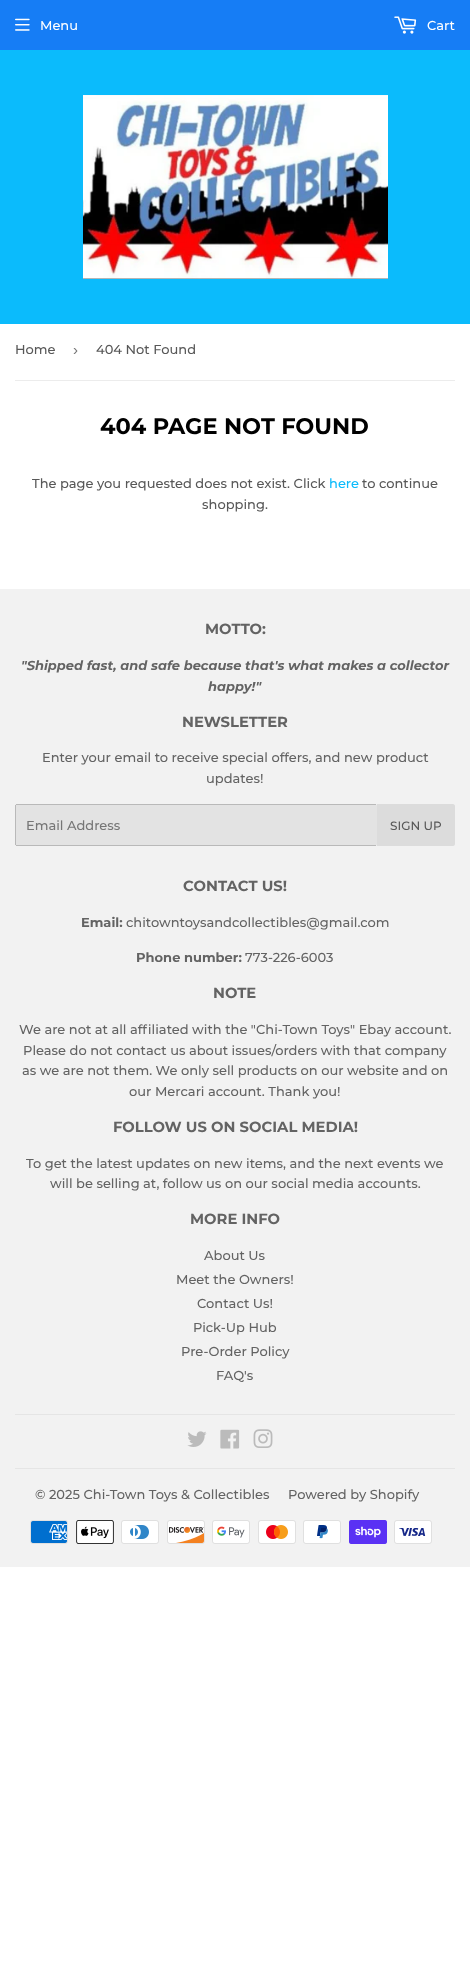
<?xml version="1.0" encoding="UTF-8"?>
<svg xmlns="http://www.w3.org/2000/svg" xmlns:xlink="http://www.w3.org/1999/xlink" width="470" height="1978">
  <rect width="100%" height="100%" fill="#ffffff" />
  <rect width="470" height="50" fill="#167df5" />
  <image x="15" y="18" width="15" height="13" xlink:href="image1.png" />
  <image x="394" y="16" width="23" height="18" xlink:href="image2.png" />
  <rect y="50" width="470" height="274" fill="#0bbbfc" />
  <image x="83" y="95" width="305" height="184" xlink:href="image3.png" />
  <rect x="15" y="380" width="440" height="1" fill="#ececec" />
  <rect y="589" width="470" height="978" fill="#f2f2f2" />
  <rect x="15" y="804" width="362" height="42" rx="2" fill="#e3e3e3" />
  <rect x="16" y="804" width="360" height="1" fill="#b9b9b9" />
  <rect x="16" y="845" width="360" height="1" fill="#b9b9b9" />
  <rect x="15" y="805" width="1" height="40" fill="#b9b9b9" />
  <path d="M 377 804 h 76 c 1 0 2 1 2 2 v 38 c 0 1 -1 2 -2 2 h -76 z" fill="#dcdcdc" />
  <rect x="15" y="1414" width="440" height="1" fill="#e5e5e5" />
  <image x="187" y="1431" width="20" height="16" xlink:href="image4.png" />
  <image x="220" y="1429" width="20" height="20" xlink:href="image5.png" />
  <image x="253" y="1429" width="20" height="19" xlink:href="image6.png" />
  <rect x="15" y="1468" width="440" height="1" fill="#e5e5e5" />
  <image x="30" y="1520" width="38" height="24" xlink:href="image7.png" />
  <image x="76" y="1520" width="38" height="24" xlink:href="image8.png" />
  <image x="121" y="1520" width="38" height="24" xlink:href="image9.png" />
  <image x="167" y="1520" width="38" height="24" xlink:href="image10.png" />
  <image x="212" y="1520" width="38" height="24" xlink:href="image11.png" />
  <image x="258" y="1520" width="38" height="24" xlink:href="image12.png" />
  <image x="303" y="1520" width="38" height="24" xlink:href="image13.png" />
  <image x="349" y="1520" width="38" height="24" xlink:href="image14.png" />
  <image x="394" y="1520" width="38" height="24" xlink:href="image15.png" />
  <text x="40" y="30" style="font-family: Montserrat; font-size: 13px; font-weight: 500; fill: #ffffff">Menu</text>
  <text x="427" y="30" style="font-family: Montserrat; font-size: 13px; font-weight: 500; fill: #ffffff">Cart</text>
  <text x="15" y="354" style="font-family: Montserrat; font-size: 13px; font-weight: 500; fill: #585858">Home</text>
  <text x="73" y="355" style="font-family: Liberation Sans; font-size: 15px; fill: #767676">›</text>
  <text x="96" y="354" style="font-family: Montserrat; font-size: 13px; font-weight: 500; fill: #585858">404 Not Found</text>
  <text x="100" y="434" style="font-family: Montserrat; font-size: 22.5px; font-weight: bold; fill: #000000">404 PAGE NOT FOUND</text>
  <text x="32" y="488" style="font-family: Montserrat; font-size: 13px; font-weight: 500; fill: #585858">The page you requested does not exist. Click</text>
  <text x="329" y="488" style="font-family: Montserrat; font-size: 13px; font-weight: 500; fill: #0bbbfc">here</text>
  <text x="362" y="488" style="font-family: Montserrat; font-size: 13px; font-weight: 500; fill: #585858">to continue</text>
  <text x="202" y="509" style="font-family: Montserrat; font-size: 13px; font-weight: 500; fill: #585858">shopping.</text>
  <text x="205" y="634" style="font-family: Montserrat; font-size: 14.75px; font-weight: bold; fill: #636363">MOTTO:</text>
  <text x="21" y="670" style="font-family: Montserrat; font-size: 13px; font-weight: bold; font-style: italic; fill: #636363">"Shipped fast, and safe because that's what makes a collector</text>
  <text x="208" y="691" style="font-family: Montserrat; font-size: 13px; font-weight: bold; font-style: italic; fill: #636363">happy!"</text>
  <text x="182" y="727" style="font-family: Montserrat; font-size: 14.75px; font-weight: bold; fill: #636363">NEWSLETTER</text>
  <text x="42" y="762" style="font-family: Montserrat; font-size: 13px; font-weight: 500; fill: #636363">Enter your email to receive special offers, and new product</text>
  <text x="206" y="783" style="font-family: Montserrat; font-size: 13px; font-weight: 500; fill: #636363">updates!</text>
  <text x="26" y="830" style="font-family: Montserrat; font-size: 13px; font-weight: 500; fill: #767676">Email Address</text>
  <text x="390" y="830" style="font-family: Montserrat; font-size: 12px; font-weight: 500; fill: #585858">SIGN UP</text>
  <text x="183" y="891" style="font-family: Montserrat; font-size: 14.75px; font-weight: bold; fill: #636363">CONTACT US!</text>
  <text x="81" y="927" style="font-family: Montserrat; font-size: 13px; font-weight: bold; fill: #636363">Email:</text>
  <text x="126" y="927" style="font-family: Montserrat; font-size: 13px; font-weight: 500; fill: #636363">chitowntoysandcollectibles@gmail.com</text>
  <text x="136" y="962" style="font-family: Montserrat; font-size: 13px; font-weight: bold; fill: #636363">Phone number:</text>
  <text x="245" y="962" style="font-family: Montserrat; font-size: 13px; font-weight: 500; fill: #636363">773-226-6003</text>
  <text x="213" y="998" style="font-family: Montserrat; font-size: 14.75px; font-weight: bold; fill: #636363">NOTE</text>
  <text x="19" y="1034" style="font-family: Montserrat; font-size: 13px; font-weight: 500; fill: #636363">We are not at all affiliated with the "Chi-Town Toys" Ebay account.</text>
  <text x="23" y="1055" style="font-family: Montserrat; font-size: 13px; font-weight: 500; fill: #636363">Please do not contact us about issues/orders with that company</text>
  <text x="22" y="1075" style="font-family: Montserrat; font-size: 13px; font-weight: 500; fill: #636363">as we are not them. We only sell products on our website and on</text>
  <text x="129" y="1096" style="font-family: Montserrat; font-size: 13px; font-weight: 500; fill: #636363">our Mercari account. Thank you!</text>
  <text x="113" y="1132" style="font-family: Montserrat; font-size: 14.75px; font-weight: bold; fill: #636363">FOLLOW US ON SOCIAL MEDIA!</text>
  <text x="26" y="1168" style="font-family: Montserrat; font-size: 13px; font-weight: 500; fill: #636363">To get the latest updates on new items, and the next events we</text>
  <text x="50" y="1188" style="font-family: Montserrat; font-size: 13px; font-weight: 500; fill: #636363">will be selling at, follow us on our social media accounts.</text>
  <text x="190" y="1224" style="font-family: Montserrat; font-size: 14.75px; font-weight: bold; fill: #636363">MORE INFO</text>
  <text x="204" y="1260" style="font-family: Montserrat; font-size: 13px; font-weight: 500; fill: #636363">About Us</text>
  <text x="176" y="1284" style="font-family: Montserrat; font-size: 13px; font-weight: 500; fill: #636363">Meet the Owners!</text>
  <text x="197" y="1308" style="font-family: Montserrat; font-size: 13px; font-weight: 500; fill: #636363">Contact Us!</text>
  <text x="193" y="1332" style="font-family: Montserrat; font-size: 13px; font-weight: 500; fill: #636363">Pick-Up Hub</text>
  <text x="181" y="1356" style="font-family: Montserrat; font-size: 13px; font-weight: 500; fill: #636363">Pre-Order Policy</text>
  <text x="216" y="1380" style="font-family: Montserrat; font-size: 13px; font-weight: 500; fill: #636363">FAQ's</text>
  <text x="35" y="1499" style="font-family: Montserrat; font-size: 13px; font-weight: 500; fill: #636363">© 2025 Chi-Town Toys &amp; Collectibles</text>
  <text x="288" y="1499" style="font-family: Montserrat; font-size: 13px; font-weight: 500; fill: #636363">Powered by Shopify</text>
</svg>
